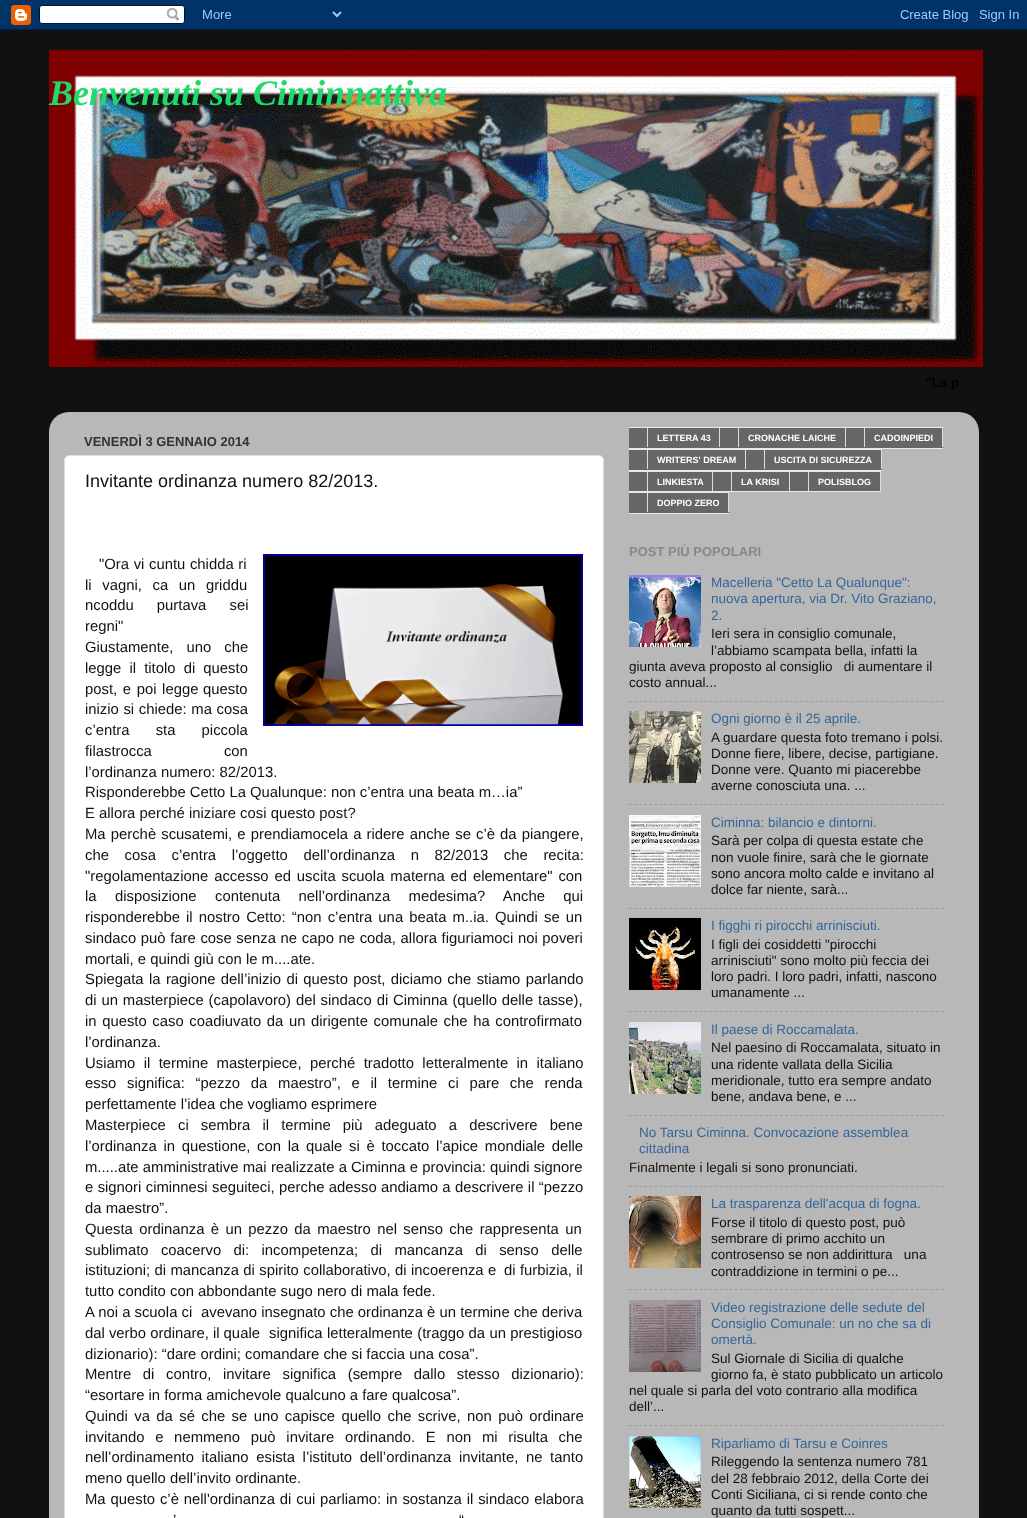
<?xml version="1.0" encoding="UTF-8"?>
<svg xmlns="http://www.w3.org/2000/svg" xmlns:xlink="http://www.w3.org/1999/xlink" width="1027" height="1518">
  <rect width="100%" height="100%" fill="#111111" />
  <image x="0" y="0" width="1027" height="30" xlink:href="image1.png" />
  <image x="49" y="50" width="934" height="317" xlink:href="image2.png" />
  <image x="49" y="412" width="930" height="1106" xlink:href="image3.png" />
  <rect x="64.5" y="455.5" width="539" height="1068" rx="4.5" fill="#ffffff" stroke="#dddddd" />
  <image x="263" y="554" width="320" height="172" xlink:href="image4.png" />
  <rect x="629" y="428" width="314" height="20" fill="#666666" />
  <rect x="629" y="427" width="314" height="1" fill="#e0ede9" />
  <rect x="629" y="448" width="314" height="1" fill="#e0ede9" />
  <rect x="647" y="428" width="1" height="19" fill="#d1e3db" />
  <rect x="719" y="428" width="1" height="19" fill="#d1e3db" />
  <rect x="738" y="428" width="1" height="19" fill="#d1e3db" />
  <rect x="845" y="428" width="1" height="19" fill="#d1e3db" />
  <rect x="864" y="428" width="1" height="19" fill="#d1e3db" />
  <rect x="942" y="428" width="1" height="19" fill="#d1e3db" />
  <rect x="629" y="450" width="253" height="20" fill="#666666" />
  <rect x="629" y="449" width="253" height="1" fill="#e0ede9" />
  <rect x="629" y="470" width="253" height="1" fill="#e0ede9" />
  <rect x="647" y="450" width="1" height="19" fill="#d1e3db" />
  <rect x="745" y="450" width="1" height="19" fill="#d1e3db" />
  <rect x="764" y="450" width="1" height="19" fill="#d1e3db" />
  <rect x="881" y="450" width="1" height="19" fill="#d1e3db" />
  <rect x="629" y="472" width="83" height="19" fill="#666666" />
  <rect x="629" y="471" width="252" height="1" fill="#e0ede9" />
  <rect x="629" y="491" width="252" height="1" fill="#e0ede9" />
  <rect x="647" y="472" width="1" height="19" fill="#d1e3db" />
  <rect x="712" y="472" width="1" height="19" fill="#d1e3db" />
  <rect x="713" y="472" width="76" height="19" fill="#666666" />
  <rect x="731" y="472" width="1" height="19" fill="#d1e3db" />
  <rect x="789" y="472" width="1" height="19" fill="#d1e3db" />
  <rect x="790" y="472" width="90" height="19" fill="#666666" />
  <rect x="808" y="472" width="1" height="19" fill="#d1e3db" />
  <rect x="880" y="472" width="1" height="19" fill="#d1e3db" />
  <rect x="629" y="493" width="100" height="20" fill="#666666" />
  <rect x="629" y="492" width="100" height="1" fill="#e0ede9" />
  <rect x="629" y="513" width="100" height="1" fill="#e0ede9" />
  <rect x="647" y="493" width="1" height="19" fill="#d1e3db" />
  <rect x="728" y="493" width="1" height="19" fill="#d1e3db" />
  <image x="629" y="575" width="72" height="72" xlink:href="image5.png" />
  <path d="M 629 701.5 h 315" fill="none" stroke="#9c9c9c" stroke-dasharray="3 2.03" />
  <image x="629" y="711" width="72" height="72" xlink:href="image6.png" />
  <path d="M 629 804.5 h 315" fill="none" stroke="#9c9c9c" stroke-dasharray="3 2.03" />
  <image x="629" y="815" width="72" height="72" xlink:href="image7.png" />
  <path d="M 629 908.5 h 315" fill="none" stroke="#9c9c9c" stroke-dasharray="3 2.03" />
  <image x="629" y="918" width="72" height="72" xlink:href="image8.png" />
  <path d="M 629 1011.5 h 315" fill="none" stroke="#9c9c9c" stroke-dasharray="3 2.03" />
  <image x="629" y="1022" width="72" height="72" xlink:href="image9.png" />
  <path d="M 629 1115.5 h 315" fill="none" stroke="#9c9c9c" stroke-dasharray="3 2.03" />
  <path d="M 629 1186.5 h 315" fill="none" stroke="#9c9c9c" stroke-dasharray="3 2.03" />
  <image x="629" y="1196" width="72" height="72" xlink:href="image10.png" />
  <path d="M 629 1289.5 h 315" fill="none" stroke="#9c9c9c" stroke-dasharray="3 2.03" />
  <image x="629" y="1300" width="72" height="72" xlink:href="image11.png" />
  <path d="M 629 1425.5 h 315" fill="none" stroke="#9c9c9c" stroke-dasharray="3 2.03" />
  <image x="629" y="1436" width="72" height="72" xlink:href="image12.png" />
  <text x="49" y="105" style="font-family: Liberation Serif; font-size: 36px; font-weight: bold; font-style: italic; fill: #1fda6b">Benvenuti su Ciminnattiva</text>
  <text x="925" y="387" style="font-family: Liberation Sans; font-size: 13.5px; font-weight: bold; fill: #000000">"La p</text>
  <text x="84" y="446" style="font-family: Liberation Sans; font-size: 13px; font-weight: bold; fill: #333333">VENERDÌ 3 GENNAIO 2014</text>
  <text x="85" y="487" style="font-family: Liberation Sans; font-size: 18px; fill: #111111">Invitante ordinanza numero 82/2013.</text>
  <text x="99" y="569" word-spacing="0.5" style="font-family: Liberation Sans; font-size: 14.85px; fill: #111111">"Ora vi cuntu chidda ri</text>
  <text x="85" y="590" word-spacing="6.5" style="font-family: Liberation Sans; font-size: 14.85px; fill: #111111">li vagni, ca un griddu</text>
  <text x="85" y="610" word-spacing="19" style="font-family: Liberation Sans; font-size: 14.85px; fill: #111111">ncoddu purtava sei</text>
  <text x="85" y="631" style="font-family: Liberation Sans; font-size: 14.85px; fill: #111111">regni"</text>
  <text x="85" y="652" word-spacing="9" style="font-family: Liberation Sans; font-size: 14.85px; fill: #111111">Giustamente, uno che</text>
  <text x="85" y="673" word-spacing="4" style="font-family: Liberation Sans; font-size: 14.85px; fill: #111111">legge il titolo di questo</text>
  <text x="85" y="694" word-spacing="1.5" style="font-family: Liberation Sans; font-size: 14.85px; fill: #111111">post, e poi legge</text>
  <text x="203" y="694" style="font-family: Liberation Sans; font-size: 14.85px; fill: #111111">questo</text>
  <text x="85" y="714" word-spacing="0.5" style="font-family: Liberation Sans; font-size: 14.85px; fill: #111111">inizio si chiede: ma cosa</text>
  <text x="85" y="735" word-spacing="22" style="font-family: Liberation Sans; font-size: 14.85px; fill: #111111">c’entra sta piccola</text>
  <text x="85" y="756" word-spacing="68" style="font-family: Liberation Sans; font-size: 14.85px; fill: #111111">filastrocca con</text>
  <text x="85" y="777" style="font-family: Liberation Sans; font-size: 14.85px; fill: #111111">l’ordinanza numero: 82/2013.</text>
  <text x="85" y="797" style="font-family: Liberation Sans; font-size: 14.85px; fill: #111111">Risponderebbe Cetto La Qualunque: non c’entra una beata m…ia”</text>
  <text x="85" y="818" style="font-family: Liberation Sans; font-size: 14.85px; fill: #111111">E allora perché iniziare cosi questo post?</text>
  <text x="85" y="839" word-spacing="1" style="font-family: Liberation Sans; font-size: 14.85px; fill: #111111">Ma perchè scusatemi, e prendiamocela a ridere anche se c’è da piangere,</text>
  <text x="85" y="860" word-spacing="11.5" style="font-family: Liberation Sans; font-size: 14.85px; fill: #111111">che cosa c’entra l’oggetto dell’ordinanza n 82/2013 che recita:</text>
  <text x="85" y="881" word-spacing="1.75" style="font-family: Liberation Sans; font-size: 14.85px; fill: #111111">"regolamentazione accesso ed uscita scuola materna ed elementare" con</text>
  <text x="85" y="901" word-spacing="14.25" style="font-family: Liberation Sans; font-size: 14.85px; fill: #111111">la disposizione contenuta nell’ordinanza medesima? Anche qui</text>
  <text x="85" y="922" word-spacing="2" style="font-family: Liberation Sans; font-size: 14.85px; fill: #111111">risponderebbe il nostro Cetto: “non c’entra una beata m..ia. Quindi se un</text>
  <text x="85" y="943" word-spacing="0.5" style="font-family: Liberation Sans; font-size: 14.85px; fill: #111111">sindaco può fare cose senza ne capo ne coda, allora figuriamoci noi poveri</text>
  <text x="85" y="964" style="font-family: Liberation Sans; font-size: 14.85px; fill: #111111">mortali, e quindi giù con le m....ate.</text>
  <text x="85" y="984" word-spacing="1.25" style="font-family: Liberation Sans; font-size: 14.85px; fill: #111111">Spiegata la ragione dell’inizio di questo post, diciamo che stiamo parlando</text>
  <text x="85" y="1005" word-spacing="0.75" style="font-family: Liberation Sans; font-size: 14.85px; fill: #111111">di un masterpiece (capolavoro) del sindaco di Ciminna (quello delle tasse),</text>
  <text x="85" y="1026" word-spacing="1.5" style="font-family: Liberation Sans; font-size: 14.85px; fill: #111111">in questo caso coadiuvato da un dirigente comunale che ha controfirmato</text>
  <text x="85" y="1047" style="font-family: Liberation Sans; font-size: 14.85px; fill: #111111">l’ordinanza.</text>
  <text x="85" y="1068" word-spacing="4.25" style="font-family: Liberation Sans; font-size: 14.85px; fill: #111111">Usiamo il termine masterpiece, perché tradotto letteralmente in italiano</text>
  <text x="85" y="1088" word-spacing="6.6" style="font-family: Liberation Sans; font-size: 14.85px; fill: #111111">esso significa: “pezzo da maestro”, e il termine ci pare che renda</text>
  <text x="85" y="1109" style="font-family: Liberation Sans; font-size: 14.85px; fill: #111111">perfettamente l’idea che vogliamo esprimere</text>
  <text x="85" y="1130" word-spacing="8" style="font-family: Liberation Sans; font-size: 14.85px; fill: #111111">Masterpiece ci sembra il termine più adeguato a descrivere bene</text>
  <text x="85" y="1151" word-spacing="2.6" style="font-family: Liberation Sans; font-size: 14.85px; fill: #111111">l’ordinanza in questione, con la quale si è toccato l’apice mondiale delle</text>
  <text x="85" y="1172" word-spacing="0.1" style="font-family: Liberation Sans; font-size: 14.85px; fill: #111111">m.....ate amministrative mai realizzate a Ciminna e provincia: quindi signore</text>
  <text x="85" y="1192" word-spacing="0.25" style="font-family: Liberation Sans; font-size: 14.85px; fill: #111111">e signori ciminnesi seguiteci, perche adesso andiamo a descrivere il “pezzo</text>
  <text x="85" y="1213" style="font-family: Liberation Sans; font-size: 14.85px; fill: #111111">da maestro”.</text>
  <text x="85" y="1234" word-spacing="2.25" style="font-family: Liberation Sans; font-size: 14.85px; fill: #111111">Questa ordinanza è un pezzo da maestro nel senso che rappresenta un</text>
  <text x="85" y="1255" word-spacing="8.25" style="font-family: Liberation Sans; font-size: 14.85px; fill: #111111">sublimato coacervo di: incompetenza; di mancanza di senso delle</text>
  <text x="85" y="1275" word-spacing="0.25" style="font-family: Liberation Sans; font-size: 14.85px; fill: #111111">istituzioni; di mancanza di spirito collaborativo, di incoerenza e</text>
  <text x="504" y="1275" word-spacing="0.25" style="font-family: Liberation Sans; font-size: 14.85px; fill: #111111">di furbizia, il</text>
  <text x="85" y="1296" style="font-family: Liberation Sans; font-size: 14.85px; fill: #111111">tutto condito con abbondante sugo nero di mala fede.</text>
  <text x="85" y="1317" style="font-family: Liberation Sans; font-size: 14.85px; fill: #111111">A noi a scuola ci</text>
  <text x="201" y="1317" style="font-family: Liberation Sans; font-size: 14.85px; fill: #111111">avevano insegnato che ordinanza è un termine che deriva</text>
  <text x="85" y="1338" style="font-family: Liberation Sans; font-size: 14.85px; fill: #111111">dal verbo ordinare, il quale</text>
  <text x="269" y="1338" word-spacing="0.25" style="font-family: Liberation Sans; font-size: 14.85px; fill: #111111">significa letteralmente (traggo da un prestigioso</text>
  <text x="85" y="1359" style="font-family: Liberation Sans; font-size: 14.85px; fill: #111111">dizionario): “dare ordini; comandare che si faccia una cosa”.</text>
  <text x="85" y="1379" word-spacing="7.5" style="font-family: Liberation Sans; font-size: 14.85px; fill: #111111">Mentre di contro, invitare significa (sempre dallo stesso dizionario):</text>
  <text x="85" y="1400" style="font-family: Liberation Sans; font-size: 14.85px; fill: #111111">“esortare in forma amichevole qualcuno a fare qualcosa”.</text>
  <text x="85" y="1421" word-spacing="2.25" style="font-family: Liberation Sans; font-size: 14.85px; fill: #111111">Quindi va da sé che se uno capisce quello che scrive, non può ordinare</text>
  <text x="85" y="1442" word-spacing="6.6" style="font-family: Liberation Sans; font-size: 14.85px; fill: #111111">invitando e nemmeno può invitare ordinando. E non mi risulta che</text>
  <text x="85" y="1462" word-spacing="3.5" style="font-family: Liberation Sans; font-size: 14.85px; fill: #111111">nell’ordinamento italiano esista l’istituto dell’ordinanza invitante, ne tanto</text>
  <text x="85" y="1483" style="font-family: Liberation Sans; font-size: 14.85px; fill: #111111">meno quello dell’invito ordinante.</text>
  <text x="85" y="1504" word-spacing="0.75" style="font-family: Liberation Sans; font-size: 14.85px; fill: #111111">Ma questo c’è nell'ordinanza di cui parliamo: in sostanza il sindaco elabora</text>
  <text x="173" y="1525" style="font-family: Liberation Sans; font-size: 14.85px; fill: #111111">’</text>
  <text x="459" y="1525" style="font-family: Liberation Sans; font-size: 14.85px; fill: #111111">“</text>
  <text x="657" y="441" style="font-family: Liberation Sans; font-size: 9px; font-weight: bold; fill: #ffffff">LETTERA 43</text>
  <text x="748" y="441" style="font-family: Liberation Sans; font-size: 9px; font-weight: bold; fill: #ffffff">CRONACHE LAICHE</text>
  <text x="874" y="441" style="font-family: Liberation Sans; font-size: 9px; font-weight: bold; fill: #ffffff">CADOINPIEDI</text>
  <text x="657" y="463" style="font-family: Liberation Sans; font-size: 9px; font-weight: bold; fill: #ffffff">WRITERS' DREAM</text>
  <text x="774" y="463" style="font-family: Liberation Sans; font-size: 9px; font-weight: bold; fill: #ffffff">USCITA DI SICUREZZA</text>
  <text x="657" y="485" style="font-family: Liberation Sans; font-size: 9px; font-weight: bold; fill: #ffffff">LINKIESTA</text>
  <text x="741" y="485" style="font-family: Liberation Sans; font-size: 9px; font-weight: bold; fill: #ffffff">LA KRISI</text>
  <text x="818" y="485" style="font-family: Liberation Sans; font-size: 9px; font-weight: bold; fill: #ffffff">POLISBLOG</text>
  <text x="657" y="506" style="font-family: Liberation Sans; font-size: 9px; font-weight: bold; fill: #ffffff">DOPPIO ZERO</text>
  <text x="629" y="556" style="font-family: Liberation Sans; font-size: 13px; font-weight: bold; fill: #888888">POST PIÙ POPOLARI</text>
  <text x="711" y="587" style="font-family: Liberation Sans; font-size: 13.5px; fill: #336699">Macelleria "Cetto La Qualunque":</text>
  <text x="711" y="603" style="font-family: Liberation Sans; font-size: 13.5px; fill: #336699">nuova apertura, via Dr. Vito Graziano,</text>
  <text x="711" y="620" style="font-family: Liberation Sans; font-size: 13.5px; fill: #336699">2.</text>
  <text x="711" y="638" style="font-family: Liberation Sans; font-size: 13.5px; fill: #111111">Ieri sera in consiglio comunale,</text>
  <text x="711" y="655" style="font-family: Liberation Sans; font-size: 13.5px; fill: #111111">l’abbiamo scampata bella, infatti la</text>
  <text x="629" y="671" style="font-family: Liberation Sans; font-size: 13.5px; fill: #111111" xml:space="preserve">giunta aveva proposto al consiglio   di aumentare il</text>
  <text x="629" y="687" style="font-family: Liberation Sans; font-size: 13.5px; fill: #111111">costo annual...</text>
  <text x="711" y="723" style="font-family: Liberation Sans; font-size: 13.5px; fill: #336699">Ogni giorno è il 25 aprile.</text>
  <text x="711" y="742" style="font-family: Liberation Sans; font-size: 13.5px; fill: #111111">A guardare questa foto tremano i polsi.</text>
  <text x="711" y="758" style="font-family: Liberation Sans; font-size: 13.5px; fill: #111111">Donne fiere, libere, decise, partigiane.</text>
  <text x="711" y="774" style="font-family: Liberation Sans; font-size: 13.5px; fill: #111111">Donne vere. Quanto mi piacerebbe</text>
  <text x="711" y="790" style="font-family: Liberation Sans; font-size: 13.5px; fill: #111111">averne conosciuta una. ...</text>
  <text x="711" y="827" style="font-family: Liberation Sans; font-size: 13.5px; fill: #336699">Ciminna: bilancio e dintorni.</text>
  <text x="711" y="845" style="font-family: Liberation Sans; font-size: 13.5px; fill: #111111">Sarà per colpa di questa estate che</text>
  <text x="711" y="862" style="font-family: Liberation Sans; font-size: 13.5px; fill: #111111">non vuole finire, sarà che le giornate</text>
  <text x="711" y="878" style="font-family: Liberation Sans; font-size: 13.5px; fill: #111111">sono ancora molto calde e invitano al</text>
  <text x="711" y="894" style="font-family: Liberation Sans; font-size: 13.5px; fill: #111111">dolce far niente, sarà...</text>
  <text x="711" y="930" style="font-family: Liberation Sans; font-size: 13.5px; fill: #336699">I figghi ri pirocchi arrinisciuti.</text>
  <text x="711" y="949" style="font-family: Liberation Sans; font-size: 13.5px; fill: #111111">I figli dei cosiddetti "pirocchi</text>
  <text x="711" y="965" style="font-family: Liberation Sans; font-size: 13.5px; fill: #111111">arrinisciuti" sono molto più feccia dei</text>
  <text x="711" y="981" style="font-family: Liberation Sans; font-size: 13.5px; fill: #111111">loro padri. I loro padri, infatti, nascono</text>
  <text x="711" y="997" style="font-family: Liberation Sans; font-size: 13.5px; fill: #111111">umanamente ...</text>
  <text x="711" y="1034" style="font-family: Liberation Sans; font-size: 13.5px; fill: #336699">Il paese di Roccamalata.</text>
  <text x="711" y="1052" style="font-family: Liberation Sans; font-size: 13.5px; fill: #111111">Nel paesino di Roccamalata, situato in</text>
  <text x="711" y="1069" style="font-family: Liberation Sans; font-size: 13.5px; fill: #111111">una ridente vallata della Sicilia</text>
  <text x="711" y="1085" style="font-family: Liberation Sans; font-size: 13.5px; fill: #111111">meridionale, tutto era sempre andato</text>
  <text x="711" y="1101" style="font-family: Liberation Sans; font-size: 13.5px; fill: #111111">bene, andava bene, e ...</text>
  <text x="639" y="1137" style="font-family: Liberation Sans; font-size: 13.5px; fill: #336699">No Tarsu Ciminna. Convocazione assemblea</text>
  <text x="639" y="1153" style="font-family: Liberation Sans; font-size: 13.5px; fill: #336699">cittadina</text>
  <text x="629" y="1172" style="font-family: Liberation Sans; font-size: 13.5px; fill: #111111">Finalmente i legali si sono pronunciati.</text>
  <text x="711" y="1208" style="font-family: Liberation Sans; font-size: 13.5px; fill: #336699">La trasparenza dell'acqua di fogna.</text>
  <text x="711" y="1227" style="font-family: Liberation Sans; font-size: 13.5px; fill: #111111">Forse il titolo di questo post, può</text>
  <text x="711" y="1243" style="font-family: Liberation Sans; font-size: 13.5px; fill: #111111">sembrare di primo acchito un</text>
  <text x="711" y="1259" style="font-family: Liberation Sans; font-size: 13.5px; fill: #111111" xml:space="preserve">controsenso se non addirittura   una</text>
  <text x="711" y="1276" style="font-family: Liberation Sans; font-size: 13.5px; fill: #111111">contraddizione in termini o pe...</text>
  <text x="711" y="1312" style="font-family: Liberation Sans; font-size: 13.5px; fill: #336699">Video registrazione delle sedute del</text>
  <text x="711" y="1328" style="font-family: Liberation Sans; font-size: 13.5px; fill: #336699">Consiglio Comunale: un no che sa di</text>
  <text x="711" y="1344" style="font-family: Liberation Sans; font-size: 13.5px; fill: #336699">omertà.</text>
  <text x="711" y="1363" style="font-family: Liberation Sans; font-size: 13.5px; fill: #111111">Sul Giornale di Sicilia di qualche</text>
  <text x="711" y="1379" style="font-family: Liberation Sans; font-size: 13.5px; fill: #111111">giorno fa, è stato pubblicato un articolo</text>
  <text x="629" y="1395" style="font-family: Liberation Sans; font-size: 13.5px; fill: #111111">nel quale si parla del voto contrario alla modifica</text>
  <text x="629" y="1411" style="font-family: Liberation Sans; font-size: 13.5px; fill: #111111">dell’...</text>
  <text x="711" y="1448" style="font-family: Liberation Sans; font-size: 13.5px; fill: #336699">Riparliamo di Tarsu e Coinres</text>
  <text x="711" y="1466" style="font-family: Liberation Sans; font-size: 13.5px; fill: #111111">Rileggendo la sentenza numero 781</text>
  <text x="711" y="1483" style="font-family: Liberation Sans; font-size: 13.5px; fill: #111111">del 28 febbraio 2012, della Corte dei</text>
  <text x="711" y="1499" style="font-family: Liberation Sans; font-size: 13.5px; fill: #111111">Conti Siciliana, ci si rende conto che</text>
  <text x="711" y="1515" style="font-family: Liberation Sans; font-size: 13.5px; fill: #111111">quanto da tutti sospett...</text>
</svg>
